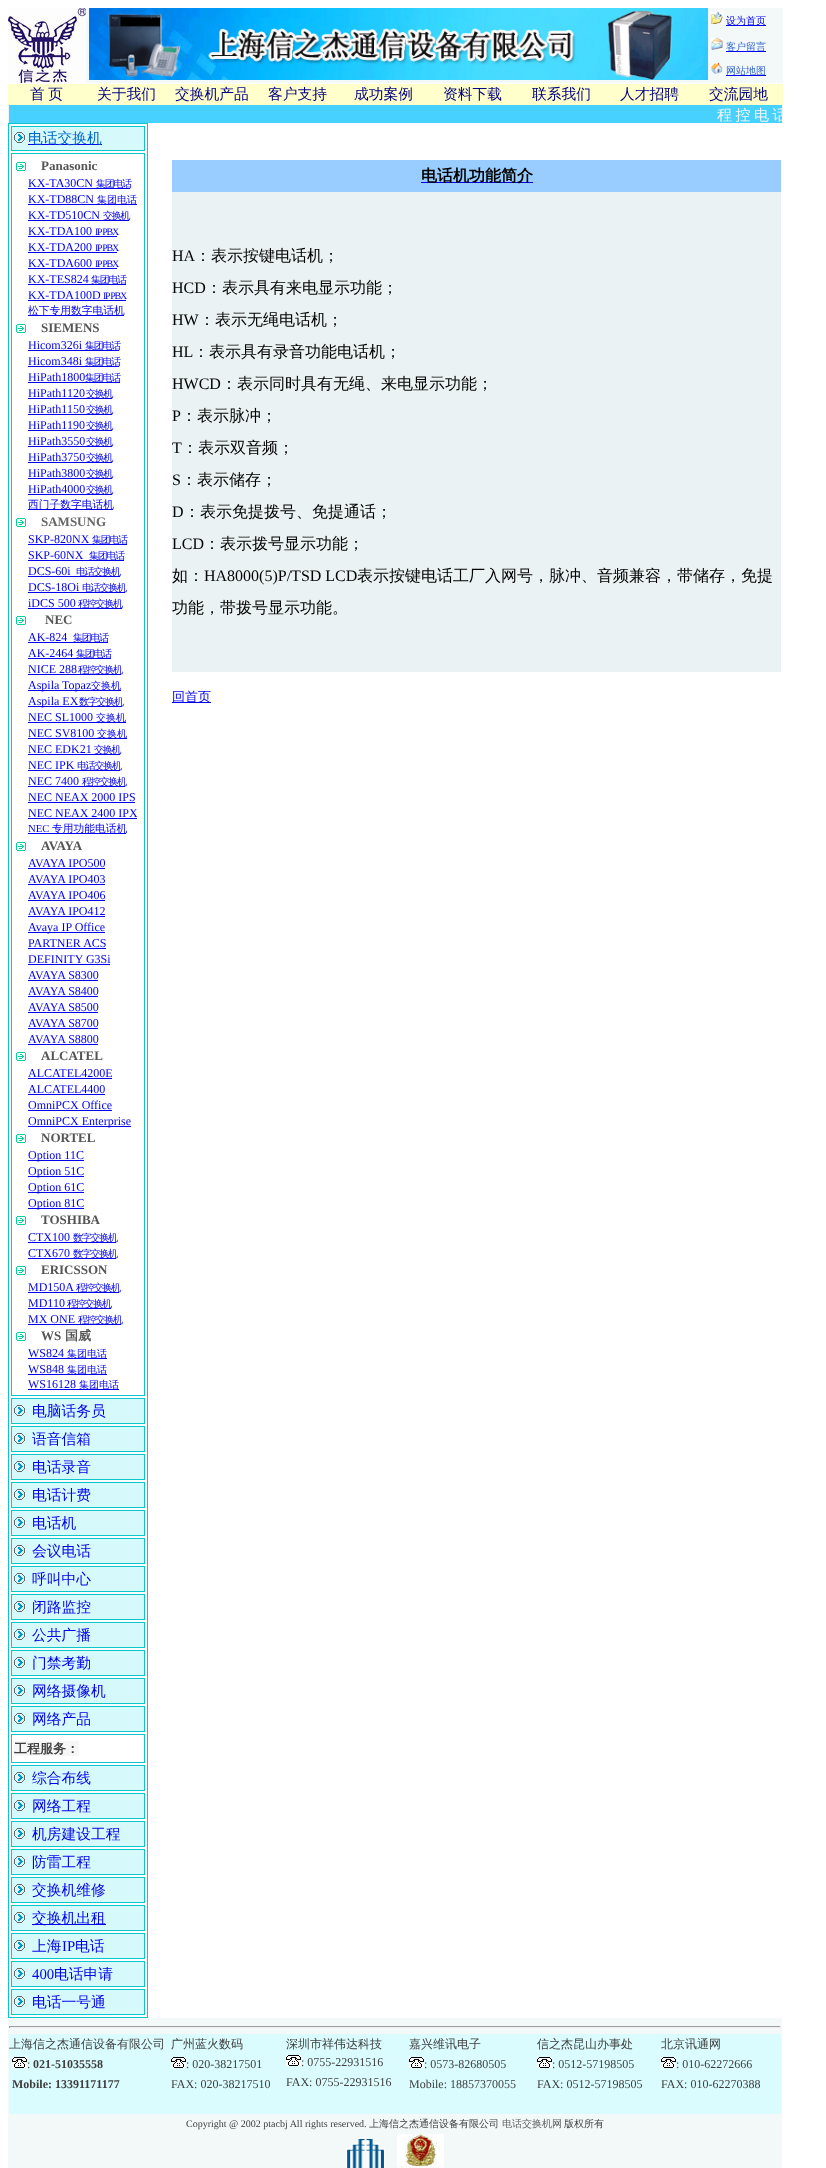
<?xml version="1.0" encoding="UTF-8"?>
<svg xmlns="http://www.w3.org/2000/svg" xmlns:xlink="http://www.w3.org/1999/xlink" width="826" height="2168">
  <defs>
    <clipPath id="clip1"><rect x="9" y="105" width="773" height="18" /></clipPath>
  </defs>
  <rect width="100%" height="100%" fill="#ffffff" />
  <rect x="86" y="8" width="697" height="75" fill="#f3f8f8" />
  <image x="8" y="8" width="78" height="75" xlink:href="image1.png" />
  <image x="89" y="8" width="619" height="72" xlink:href="image2.png" />
  <image x="711" y="12" width="12" height="12" xlink:href="image3.png" />
  <rect x="726" y="25" width="40" height="1" fill="#0000ee" />
  <image x="711" y="38" width="12" height="12" xlink:href="image4.png" />
  <rect x="726" y="51" width="40" height="1" fill="#0000ff" />
  <image x="711" y="62" width="12" height="12" xlink:href="image5.png" />
  <rect x="726" y="75" width="40" height="1" fill="#0000ee" />
  <rect x="8" y="84" width="775" height="21" fill="#ffffcc" />
  <rect x="8" y="105" width="775" height="18" fill="#f2f2f2" />
  <rect x="9" y="105" width="773" height="18" fill="#46d1ff" />
  <rect x="8.5" y="123.5" width="139" height="1894" fill="none" stroke="#0bc6ca" />
  <rect x="11.5" y="126.5" width="133" height="24" fill="#d6fafc" stroke="#0bc6ca" />
  <image x="14" y="132" width="11" height="11" xlink:href="image6.png" />
  <rect x="28" y="144" width="74" height="1" fill="#0000ee" />
  <rect x="11.5" y="153.5" width="133" height="1242" fill="none" stroke="#0bc6ca" />
  <image x="16" y="162" width="10" height="9" xlink:href="image7.png" />
  <rect x="28" y="188" width="102" height="1" fill="#0000ee" />
  <rect x="28" y="204" width="109" height="1" fill="#0000ee" />
  <rect x="28" y="220" width="101" height="1" fill="#0000ee" />
  <rect x="28" y="236" width="89" height="1" fill="#0000ee" />
  <rect x="28" y="252" width="89" height="1" fill="#0000ee" />
  <rect x="28" y="268" width="89" height="1" fill="#0000ee" />
  <rect x="28" y="284" width="98" height="1" fill="#0000ee" />
  <rect x="28" y="300" width="98" height="1" fill="#0000ee" />
  <rect x="28" y="315" width="96" height="1" fill="#0000ee" />
  <image x="16" y="324" width="10" height="9" xlink:href="image7.png" />
  <rect x="28" y="350" width="91" height="1" fill="#0000ee" />
  <rect x="28" y="366" width="91" height="1" fill="#0000ee" />
  <rect x="28" y="382" width="92" height="1" fill="#0000ee" />
  <rect x="28" y="398" width="84" height="1" fill="#0000ee" />
  <rect x="28" y="414" width="84" height="1" fill="#0000ee" />
  <rect x="28" y="430" width="84" height="1" fill="#0000ee" />
  <rect x="28" y="446" width="84" height="1" fill="#0000ee" />
  <rect x="28" y="462" width="84" height="1" fill="#0000ee" />
  <rect x="28" y="478" width="84" height="1" fill="#0000ee" />
  <rect x="28" y="494" width="84" height="1" fill="#0000ee" />
  <rect x="28" y="509" width="85" height="1" fill="#0000ee" />
  <image x="16" y="518" width="10" height="9" xlink:href="image7.png" />
  <rect x="28" y="544" width="99" height="1" fill="#0000ee" />
  <rect x="28" y="560" width="96" height="1" fill="#0000ee" />
  <rect x="28" y="576" width="92" height="1" fill="#0000ee" />
  <rect x="28" y="592" width="97" height="1" fill="#0000ee" />
  <rect x="28" y="608" width="94" height="1" fill="#0000ee" />
  <image x="16" y="616" width="10" height="9" xlink:href="image7.png" />
  <rect x="28" y="642" width="80" height="1" fill="#0000ee" />
  <rect x="28" y="658" width="83" height="1" fill="#0000ee" />
  <rect x="28" y="674" width="93" height="1" fill="#0000ee" />
  <rect x="28" y="690" width="93" height="1" fill="#0000ee" />
  <rect x="28" y="706" width="94" height="1" fill="#0000ee" />
  <rect x="28" y="722" width="98" height="1" fill="#0000ee" />
  <rect x="28" y="738" width="99" height="1" fill="#0000ee" />
  <rect x="28" y="754" width="92" height="1" fill="#0000ee" />
  <rect x="28" y="770" width="92" height="1" fill="#0000ee" />
  <rect x="28" y="786" width="97" height="1" fill="#0000ee" />
  <rect x="28" y="802" width="107" height="1" fill="#0000ee" />
  <rect x="28" y="818" width="109" height="1" fill="#0000ee" />
  <rect x="28" y="833" width="98" height="1" fill="#0000ff" />
  <image x="16" y="842" width="10" height="9" xlink:href="image7.png" />
  <rect x="28" y="868" width="77" height="1" fill="#0000ee" />
  <rect x="28" y="884" width="77" height="1" fill="#0000ee" />
  <rect x="28" y="900" width="77" height="1" fill="#0000ee" />
  <rect x="28" y="916" width="77" height="1" fill="#0000ee" />
  <rect x="28" y="932" width="77" height="1" fill="#0000ee" />
  <rect x="28" y="948" width="78" height="1" fill="#0000ee" />
  <rect x="28" y="964" width="82" height="1" fill="#0000ee" />
  <rect x="28" y="980" width="70" height="1" fill="#0000ee" />
  <rect x="28" y="996" width="70" height="1" fill="#0000ee" />
  <rect x="28" y="1012" width="70" height="1" fill="#0000ee" />
  <rect x="28" y="1028" width="70" height="1" fill="#0000ee" />
  <rect x="28" y="1044" width="70" height="1" fill="#0000ee" />
  <image x="16" y="1052" width="10" height="9" xlink:href="image7.png" />
  <rect x="28" y="1078" width="84" height="1" fill="#0000ee" />
  <rect x="28" y="1094" width="77" height="1" fill="#0000ee" />
  <rect x="28" y="1110" width="84" height="1" fill="#0000ee" />
  <rect x="28" y="1126" width="103" height="1" fill="#0000ee" />
  <image x="16" y="1134" width="10" height="9" xlink:href="image7.png" />
  <rect x="28" y="1160" width="56" height="1" fill="#0000ee" />
  <rect x="28" y="1176" width="56" height="1" fill="#0000ee" />
  <rect x="28" y="1192" width="56" height="1" fill="#0000ee" />
  <rect x="28" y="1208" width="56" height="1" fill="#0000ee" />
  <image x="16" y="1216" width="10" height="9" xlink:href="image7.png" />
  <rect x="28" y="1242" width="88" height="1" fill="#0000ee" />
  <rect x="28" y="1258" width="88" height="1" fill="#0000ee" />
  <image x="16" y="1266" width="10" height="9" xlink:href="image7.png" />
  <rect x="28" y="1292" width="91" height="1" fill="#0000ee" />
  <rect x="28" y="1308" width="83" height="1" fill="#0000ee" />
  <rect x="28" y="1324" width="93" height="1" fill="#0000ee" />
  <image x="16" y="1332" width="10" height="9" xlink:href="image7.png" />
  <rect x="28" y="1358" width="79" height="1" fill="#0000ee" />
  <rect x="28" y="1374" width="79" height="1" fill="#0000ee" />
  <rect x="28" y="1389" width="91" height="1" fill="#0000ee" />
  <rect x="11.5" y="1398.5" width="133" height="25" fill="#d6fafc" stroke="#0bc6ca" />
  <image x="14" y="1405" width="11" height="11" xlink:href="image6.png" />
  <rect x="11.5" y="1426.5" width="133" height="25" fill="#d6fafc" stroke="#0bc6ca" />
  <image x="14" y="1433" width="11" height="11" xlink:href="image6.png" />
  <rect x="11.5" y="1454.5" width="133" height="25" fill="#d6fafc" stroke="#0bc6ca" />
  <image x="14" y="1461" width="11" height="11" xlink:href="image6.png" />
  <rect x="11.5" y="1482.5" width="133" height="25" fill="#d6fafc" stroke="#0bc6ca" />
  <image x="14" y="1489" width="11" height="11" xlink:href="image6.png" />
  <rect x="11.5" y="1510.5" width="133" height="25" fill="#d6fafc" stroke="#0bc6ca" />
  <image x="14" y="1517" width="11" height="11" xlink:href="image6.png" />
  <rect x="11.5" y="1538.5" width="133" height="25" fill="#d6fafc" stroke="#0bc6ca" />
  <image x="14" y="1545" width="11" height="11" xlink:href="image6.png" />
  <rect x="11.5" y="1566.5" width="133" height="25" fill="#d6fafc" stroke="#0bc6ca" />
  <image x="14" y="1573" width="11" height="11" xlink:href="image6.png" />
  <rect x="11.5" y="1594.5" width="133" height="25" fill="#d6fafc" stroke="#0bc6ca" />
  <image x="14" y="1601" width="11" height="11" xlink:href="image6.png" />
  <rect x="11.5" y="1622.5" width="133" height="25" fill="#d6fafc" stroke="#0bc6ca" />
  <image x="14" y="1629" width="11" height="11" xlink:href="image6.png" />
  <rect x="11.5" y="1650.5" width="133" height="25" fill="#d6fafc" stroke="#0bc6ca" />
  <image x="14" y="1657" width="11" height="11" xlink:href="image6.png" />
  <rect x="11.5" y="1678.5" width="133" height="25" fill="#d6fafc" stroke="#0bc6ca" />
  <image x="14" y="1685" width="11" height="11" xlink:href="image6.png" />
  <rect x="11.5" y="1706.5" width="133" height="25" fill="#d6fafc" stroke="#0bc6ca" />
  <image x="14" y="1713" width="11" height="11" xlink:href="image6.png" />
  <rect x="11.5" y="1734.5" width="133" height="28" fill="none" stroke="#0bc6ca" />
  <rect x="14" y="1741" width="65" height="15" fill="#f6f6f6" />
  <rect x="11.5" y="1765.5" width="133" height="25" fill="#d6fafc" stroke="#0bc6ca" />
  <image x="14" y="1772" width="11" height="11" xlink:href="image6.png" />
  <rect x="11.5" y="1793.5" width="133" height="25" fill="#d6fafc" stroke="#0bc6ca" />
  <image x="14" y="1800" width="11" height="11" xlink:href="image6.png" />
  <rect x="11.5" y="1821.5" width="133" height="25" fill="#d6fafc" stroke="#0bc6ca" />
  <image x="14" y="1828" width="11" height="11" xlink:href="image6.png" />
  <rect x="11.5" y="1849.5" width="133" height="25" fill="#d6fafc" stroke="#0bc6ca" />
  <image x="14" y="1856" width="11" height="11" xlink:href="image6.png" />
  <rect x="11.5" y="1877.5" width="133" height="25" fill="#d6fafc" stroke="#0bc6ca" />
  <image x="14" y="1884" width="11" height="11" xlink:href="image6.png" />
  <rect x="11.5" y="1905.5" width="133" height="25" fill="#d6fafc" stroke="#0bc6ca" />
  <image x="14" y="1912" width="11" height="11" xlink:href="image6.png" />
  <rect x="32" y="1924" width="74" height="1" fill="#0000ee" />
  <rect x="11.5" y="1933.5" width="133" height="25" fill="#d6fafc" stroke="#0bc6ca" />
  <image x="14" y="1940" width="11" height="11" xlink:href="image6.png" />
  <rect x="11.5" y="1961.5" width="133" height="25" fill="#d6fafc" stroke="#0bc6ca" />
  <image x="14" y="1968" width="11" height="11" xlink:href="image6.png" />
  <rect x="11.5" y="1989.5" width="133" height="25" fill="#d6fafc" stroke="#0bc6ca" />
  <image x="14" y="1996" width="11" height="11" xlink:href="image6.png" />
  <rect x="172" y="160" width="609" height="32" fill="#99ccff" />
  <rect x="421" y="182" width="112" height="1" fill="#0000ee" />
  <rect x="172" y="192" width="609" height="480" fill="#ebf2f3" />
  <rect x="172" y="702" width="39" height="1" fill="#0000ee" />
  <rect x="8" y="2018" width="774" height="150" fill="#f3f8f8" />
  <rect x="9" y="2026" width="772" height="1" fill="#9f9f9f" />
  <rect x="780" y="2026" width="1" height="2" fill="#eeeeee" />
  <rect x="9" y="2027" width="772" height="1" fill="#eeeeee" />
  <rect x="9" y="2026" width="1" height="2" fill="#9f9f9f" />
  <rect x="9" y="2034" width="772" height="80" fill="#dafcfe" />
  <image x="12" y="2057" width="15" height="11" xlink:href="image8.png" />
  <image x="171" y="2057" width="15" height="11" xlink:href="image8.png" />
  <image x="286" y="2055" width="15" height="11" xlink:href="image8.png" />
  <image x="409" y="2057" width="15" height="11" xlink:href="image8.png" />
  <image x="537" y="2057" width="15" height="11" xlink:href="image8.png" />
  <image x="661" y="2057" width="15" height="11" xlink:href="image8.png" />
  <image x="346" y="2139" width="39" height="29" xlink:href="image9.png" />
  <image x="397" y="2134" width="47" height="34" xlink:href="image10.png" />
  <text x="726" y="24" style="font-family: WenQuanYi Zen Hei; font-size: 10px; font-weight: 500; fill: #0000ee">设为首页</text>
  <text x="726" y="50" style="font-family: WenQuanYi Zen Hei; font-size: 10px; font-weight: 500; fill: #3366cc">客户留言</text>
  <text x="726" y="74" style="font-family: WenQuanYi Zen Hei; font-size: 10px; font-weight: 500; fill: #3366cc">网站地图</text>
  <text x="30" y="99" word-spacing="-1" style="font-family: WenQuanYi Zen Hei; font-size: 14.75px; font-weight: 500; fill: #000080">首 页</text>
  <text x="97" y="99" style="font-family: WenQuanYi Zen Hei; font-size: 14.75px; font-weight: 500; fill: #000080">关于我们</text>
  <text x="175" y="99" style="font-family: WenQuanYi Zen Hei; font-size: 14.75px; font-weight: 500; fill: #000080">交换机产品</text>
  <text x="268" y="99" style="font-family: WenQuanYi Zen Hei; font-size: 14.75px; font-weight: 500; fill: #000080">客户支持</text>
  <text x="354" y="99" style="font-family: WenQuanYi Zen Hei; font-size: 14.75px; font-weight: 500; fill: #000080">成功案例</text>
  <text x="443" y="99" style="font-family: WenQuanYi Zen Hei; font-size: 14.75px; font-weight: 500; fill: #000080">资料下载</text>
  <text x="532" y="99" style="font-family: WenQuanYi Zen Hei; font-size: 14.75px; font-weight: 500; fill: #000080">联系我们</text>
  <text x="620" y="99" style="font-family: WenQuanYi Zen Hei; font-size: 14.75px; font-weight: 500; fill: #000080">人才招聘</text>
  <text x="709" y="99" style="font-family: WenQuanYi Zen Hei; font-size: 14.75px; font-weight: 500; fill: #000080">交流园地</text>
  <g clip-path="url(#clip1)">
    <text x="717" y="120" word-spacing="-1" style="font-family: WenQuanYi Zen Hei; font-size: 15px; font-weight: 500; fill: #f6f6f6">程 控 电 话</text>
  </g>
  <text x="28" y="143" style="font-family: WenQuanYi Zen Hei; font-size: 14.75px; font-weight: 500; fill: #0066cc">电话交换机</text>
  <text x="41" y="170" style="font-family: Liberation Serif; font-size: 13px; font-weight: bold; fill: #555555">Panasonic</text>
  <text x="28" y="187" style="font-family: Liberation Serif; font-size: 12px; fill: #0000ee">KX-TA30CN</text>
  <text x="96" y="187" style="font-family: WenQuanYi Zen Hei; font-size: 10px; font-weight: 500; letter-spacing: -1.25px; fill: #0000ee">集团电话</text>
  <text x="28" y="203" style="font-family: Liberation Serif; font-size: 12px; fill: #0000ee">KX-TD88CN</text>
  <text x="97" y="203" style="font-family: WenQuanYi Zen Hei; font-size: 10px; font-weight: 500; fill: #0000ee">集团电话</text>
  <text x="28" y="219" style="font-family: Liberation Serif; font-size: 12px; fill: #0000ee">KX-TD510CN</text>
  <text x="103" y="219" style="font-family: WenQuanYi Zen Hei; font-size: 10px; font-weight: 500; letter-spacing: -1.25px; fill: #0000ee">交换机</text>
  <text x="28" y="235" style="font-family: Liberation Serif; font-size: 12px; fill: #0000ee">KX-TDA100</text>
  <text x="95" y="235" style="font-family: Liberation Serif; font-size: 10px; letter-spacing: -1.25px; fill: #0000ee">IP PBX</text>
  <text x="28" y="251" style="font-family: Liberation Serif; font-size: 12px; fill: #0000ee">KX-TDA200</text>
  <text x="95" y="251" style="font-family: Liberation Serif; font-size: 10px; letter-spacing: -1.25px; fill: #0000ee">IP PBX</text>
  <text x="28" y="267" style="font-family: Liberation Serif; font-size: 12px; fill: #0000ee">KX-TDA600</text>
  <text x="95" y="267" style="font-family: Liberation Serif; font-size: 10px; letter-spacing: -1.25px; fill: #0000ee">IP PBX</text>
  <text x="28" y="283" style="font-family: Liberation Serif; font-size: 12px; fill: #0000ee">KX-TES824</text>
  <text x="91" y="283" style="font-family: WenQuanYi Zen Hei; font-size: 10px; font-weight: 500; letter-spacing: -1.25px; fill: #0000ee">集团电话</text>
  <text x="28" y="299" style="font-family: Liberation Serif; font-size: 12px; fill: #0000ee">KX-TDA100D</text>
  <text x="103" y="299" style="font-family: Liberation Serif; font-size: 10px; letter-spacing: -1.25px; fill: #0000ee">IP PBX</text>
  <text x="28" y="314" style="font-family: WenQuanYi Zen Hei; font-size: 10.75px; font-weight: 500; fill: #0000ee">松下专用数字电话机</text>
  <text x="41" y="332" style="font-family: Liberation Serif; font-size: 13px; font-weight: bold; fill: #555555">SIEMENS</text>
  <text x="28" y="349" style="font-family: Liberation Serif; font-size: 12px; fill: #0000ee">Hicom326i</text>
  <text x="85" y="349" style="font-family: WenQuanYi Zen Hei; font-size: 10px; font-weight: 500; letter-spacing: -1.25px; fill: #0000ee">集团电话</text>
  <text x="28" y="365" style="font-family: Liberation Serif; font-size: 12px; fill: #0000ee">Hicom348i</text>
  <text x="85" y="365" style="font-family: WenQuanYi Zen Hei; font-size: 10px; font-weight: 500; letter-spacing: -1.25px; fill: #0000ee">集团电话</text>
  <text x="28" y="381" style="font-family: Liberation Serif; font-size: 12px; fill: #0000ee">HiPath1800</text>
  <text x="85" y="381" style="font-family: WenQuanYi Zen Hei; font-size: 10px; font-weight: 500; letter-spacing: -1.25px; fill: #0000ee">集团电话</text>
  <text x="28" y="397" style="font-family: Liberation Serif; font-size: 12px; fill: #0000ee">HiPath1120</text>
  <text x="86" y="397" style="font-family: WenQuanYi Zen Hei; font-size: 10px; font-weight: 500; letter-spacing: -1.25px; fill: #0000ee">交换机</text>
  <text x="28" y="413" style="font-family: Liberation Serif; font-size: 12px; fill: #0000ee">HiPath1150</text>
  <text x="86" y="413" style="font-family: WenQuanYi Zen Hei; font-size: 10px; font-weight: 500; letter-spacing: -1.25px; fill: #0000ee">交换机</text>
  <text x="28" y="429" style="font-family: Liberation Serif; font-size: 12px; fill: #0000ee">HiPath1190</text>
  <text x="86" y="429" style="font-family: WenQuanYi Zen Hei; font-size: 10px; font-weight: 500; letter-spacing: -1.25px; fill: #0000ee">交换机</text>
  <text x="28" y="445" style="font-family: Liberation Serif; font-size: 12px; fill: #0000ee">HiPath3550</text>
  <text x="86" y="445" style="font-family: WenQuanYi Zen Hei; font-size: 10px; font-weight: 500; letter-spacing: -1.25px; fill: #0000ee">交换机</text>
  <text x="28" y="461" style="font-family: Liberation Serif; font-size: 12px; fill: #0000ee">HiPath3750</text>
  <text x="86" y="461" style="font-family: WenQuanYi Zen Hei; font-size: 10px; font-weight: 500; letter-spacing: -1.25px; fill: #0000ee">交换机</text>
  <text x="28" y="477" style="font-family: Liberation Serif; font-size: 12px; fill: #0000ee">HiPath3800</text>
  <text x="86" y="477" style="font-family: WenQuanYi Zen Hei; font-size: 10px; font-weight: 500; letter-spacing: -1.25px; fill: #0000ee">交换机</text>
  <text x="28" y="493" style="font-family: Liberation Serif; font-size: 12px; fill: #0000ee">HiPath4000</text>
  <text x="86" y="493" style="font-family: WenQuanYi Zen Hei; font-size: 10px; font-weight: 500; letter-spacing: -1.25px; fill: #0000ee">交换机</text>
  <text x="28" y="508" style="font-family: WenQuanYi Zen Hei; font-size: 10.75px; font-weight: 500; fill: #0000ee">西门子数字电话机</text>
  <text x="41" y="526" style="font-family: Liberation Serif; font-size: 13px; font-weight: bold; fill: #666666">SAMSUNG</text>
  <text x="28" y="543" style="font-family: Liberation Serif; font-size: 12px; fill: #0000ee">SKP-820NX</text>
  <text x="92" y="543" style="font-family: WenQuanYi Zen Hei; font-size: 10px; font-weight: 500; letter-spacing: -1.25px; fill: #0000ee">集团电话</text>
  <text x="28" y="559" style="font-family: Liberation Serif; font-size: 12px; fill: #0000ee">SKP-60NX</text>
  <text x="89" y="559" style="font-family: WenQuanYi Zen Hei; font-size: 10px; font-weight: 500; letter-spacing: -1.25px; fill: #0000ee">集团电话</text>
  <text x="28" y="575" style="font-family: Liberation Serif; font-size: 12px; fill: #0000ee">DCS-60i</text>
  <text x="76" y="575" style="font-family: WenQuanYi Zen Hei; font-size: 10px; font-weight: 500; letter-spacing: -1.25px; fill: #0000ee">电话交换机</text>
  <text x="28" y="591" style="font-family: Liberation Serif; font-size: 12px; fill: #0000ee">DCS-18Oi</text>
  <text x="82" y="591" style="font-family: WenQuanYi Zen Hei; font-size: 10px; font-weight: 500; letter-spacing: -1.25px; fill: #0000ee">电话交换机</text>
  <text x="28" y="607" style="font-family: Liberation Serif; font-size: 12px; fill: #0000ee">iDCS 500</text>
  <text x="78" y="607" style="font-family: WenQuanYi Zen Hei; font-size: 10px; font-weight: 500; letter-spacing: -1.25px; fill: #0000ee">程控交换机</text>
  <text x="45" y="624" style="font-family: Liberation Serif; font-size: 13px; font-weight: bold; fill: #555555">NEC</text>
  <text x="28" y="641" style="font-family: Liberation Serif; font-size: 12px; fill: #0000ee">AK-824</text>
  <text x="73" y="641" style="font-family: WenQuanYi Zen Hei; font-size: 10px; font-weight: 500; letter-spacing: -1.25px; fill: #0000ee">集团电话</text>
  <text x="28" y="657" style="font-family: Liberation Serif; font-size: 12px; fill: #0000ee">AK-2464</text>
  <text x="76" y="657" style="font-family: WenQuanYi Zen Hei; font-size: 10px; font-weight: 500; letter-spacing: -1.25px; fill: #0000ee">集团电话</text>
  <text x="28" y="673" style="font-family: Liberation Serif; font-size: 12px; fill: #0000ee">NICE 288</text>
  <text x="78" y="673" style="font-family: WenQuanYi Zen Hei; font-size: 10px; font-weight: 500; letter-spacing: -1.25px; fill: #0000ee">程控交换机</text>
  <text x="28" y="689" style="font-family: Liberation Serif; font-size: 12px; fill: #0000ee">Aspila Topaz</text>
  <text x="91" y="689" style="font-family: WenQuanYi Zen Hei; font-size: 10px; font-weight: 500; fill: #0000ee">交换机</text>
  <text x="28" y="705" style="font-family: Liberation Serif; font-size: 12px; fill: #0000ee">Aspila EX</text>
  <text x="79" y="705" style="font-family: WenQuanYi Zen Hei; font-size: 10px; font-weight: 500; letter-spacing: -1.25px; fill: #0000ee">数字交换机</text>
  <text x="28" y="721" style="font-family: Liberation Serif; font-size: 12px; fill: #0000ee">NEC SL1000</text>
  <text x="96" y="721" style="font-family: WenQuanYi Zen Hei; font-size: 10px; font-weight: 500; fill: #0000ee">交换机</text>
  <text x="28" y="737" style="font-family: Liberation Serif; font-size: 12px; fill: #0000ee">NEC SV8100</text>
  <text x="97" y="737" style="font-family: WenQuanYi Zen Hei; font-size: 10px; font-weight: 500; fill: #0000ee">交换机</text>
  <text x="28" y="753" style="font-family: Liberation Serif; font-size: 12px; fill: #0000ee">NEC EDK21</text>
  <text x="94" y="753" style="font-family: WenQuanYi Zen Hei; font-size: 10px; font-weight: 500; letter-spacing: -1.25px; fill: #0000ee">交换机</text>
  <text x="28" y="769" style="font-family: Liberation Serif; font-size: 12px; fill: #0000ee">NEC IPK</text>
  <text x="77" y="769" style="font-family: WenQuanYi Zen Hei; font-size: 10px; font-weight: 500; letter-spacing: -1.25px; fill: #0000ee">电话交换机</text>
  <text x="28" y="785" style="font-family: Liberation Serif; font-size: 12px; fill: #0000ee">NEC 7400</text>
  <text x="82" y="785" style="font-family: WenQuanYi Zen Hei; font-size: 10px; font-weight: 500; letter-spacing: -1.25px; fill: #0000ee">程控交换机</text>
  <text x="28" y="801" style="font-family: Liberation Serif; font-size: 12px; fill: #0000ee">NEC NEAX 2000 IPS</text>
  <text x="28" y="817" style="font-family: Liberation Serif; font-size: 12px; fill: #0000ee">NEC NEAX 2400 IPX</text>
  <text x="28" y="832" style="font-family: Liberation Serif; font-size: 10.75px; fill: #0000ee">NEC</text>
  <text x="52" y="832" style="font-family: WenQuanYi Zen Hei; font-size: 10.75px; font-weight: 500; fill: #0000ee">专用功能电话机</text>
  <text x="41" y="850" style="font-family: Liberation Serif; font-size: 13px; font-weight: bold; fill: #555555">AVAYA</text>
  <text x="28" y="867" style="font-family: Liberation Serif; font-size: 12px; fill: #0000ee">AVAYA IPO500</text>
  <text x="28" y="883" style="font-family: Liberation Serif; font-size: 12px; fill: #0000ee">AVAYA IPO403</text>
  <text x="28" y="899" style="font-family: Liberation Serif; font-size: 12px; fill: #0000ee">AVAYA IPO406</text>
  <text x="28" y="915" style="font-family: Liberation Serif; font-size: 12px; fill: #0000ee">AVAYA IPO412</text>
  <text x="28" y="931" style="font-family: Liberation Serif; font-size: 12px; fill: #0000ee">Avaya IP Office</text>
  <text x="28" y="947" style="font-family: Liberation Serif; font-size: 12px; fill: #0000ee">PARTNER ACS</text>
  <text x="28" y="963" style="font-family: Liberation Serif; font-size: 12px; fill: #0000ee">DEFINITY G3Si</text>
  <text x="28" y="979" style="font-family: Liberation Serif; font-size: 12px; fill: #0000ee">AVAYA S8300</text>
  <text x="28" y="995" style="font-family: Liberation Serif; font-size: 12px; fill: #0000ee">AVAYA S8400</text>
  <text x="28" y="1011" style="font-family: Liberation Serif; font-size: 12px; fill: #0000ee">AVAYA S8500</text>
  <text x="28" y="1027" style="font-family: Liberation Serif; font-size: 12px; fill: #0000ee">AVAYA S8700</text>
  <text x="28" y="1043" style="font-family: Liberation Serif; font-size: 12px; fill: #0000ee">AVAYA S8800</text>
  <text x="41" y="1060" style="font-family: Liberation Serif; font-size: 13px; font-weight: bold; fill: #555555">ALCATEL</text>
  <text x="28" y="1077" style="font-family: Liberation Serif; font-size: 12px; fill: #0000ee">ALCATEL4200E</text>
  <text x="28" y="1093" style="font-family: Liberation Serif; font-size: 12px; fill: #0000ee">ALCATEL4400</text>
  <text x="28" y="1109" style="font-family: Liberation Serif; font-size: 12px; fill: #0000ee">OmniPCX Office</text>
  <text x="28" y="1125" style="font-family: Liberation Serif; font-size: 12px; fill: #0000ee">OmniPCX Enterprise</text>
  <text x="41" y="1142" style="font-family: Liberation Serif; font-size: 13px; font-weight: bold; fill: #555555">NORTEL</text>
  <text x="28" y="1159" style="font-family: Liberation Serif; font-size: 12px; fill: #0000ee">Option 11C</text>
  <text x="28" y="1175" style="font-family: Liberation Serif; font-size: 12px; fill: #0000ee">Option 51C</text>
  <text x="28" y="1191" style="font-family: Liberation Serif; font-size: 12px; fill: #0000ee">Option 61C</text>
  <text x="28" y="1207" style="font-family: Liberation Serif; font-size: 12px; fill: #0000ee">Option 81C</text>
  <text x="41" y="1224" style="font-family: Liberation Serif; font-size: 13px; font-weight: bold; fill: #555555">TOSHIBA</text>
  <text x="28" y="1241" style="font-family: Liberation Serif; font-size: 12px; fill: #0000ee">CTX100</text>
  <text x="73" y="1241" style="font-family: WenQuanYi Zen Hei; font-size: 10px; font-weight: 500; letter-spacing: -1.25px; fill: #0000ee">数字交换机</text>
  <text x="28" y="1257" style="font-family: Liberation Serif; font-size: 12px; fill: #0000ee">CTX670</text>
  <text x="73" y="1257" style="font-family: WenQuanYi Zen Hei; font-size: 10px; font-weight: 500; letter-spacing: -1.25px; fill: #0000ee">数字交换机</text>
  <text x="41" y="1274" style="font-family: Liberation Serif; font-size: 13px; font-weight: bold; fill: #555555">ERICSSON</text>
  <text x="28" y="1291" style="font-family: Liberation Serif; font-size: 12px; fill: #0000ee">MD150A</text>
  <text x="76" y="1291" style="font-family: WenQuanYi Zen Hei; font-size: 10px; font-weight: 500; letter-spacing: -1.25px; fill: #0000ee">程控交换机</text>
  <text x="28" y="1307" style="font-family: Liberation Serif; font-size: 12px; fill: #0000ee">MD110</text>
  <text x="67" y="1307" style="font-family: WenQuanYi Zen Hei; font-size: 10px; font-weight: 500; letter-spacing: -1.25px; fill: #0000ee">程控交换机</text>
  <text x="28" y="1323" style="font-family: Liberation Serif; font-size: 12px; fill: #0000ee">MX ONE</text>
  <text x="78" y="1323" style="font-family: WenQuanYi Zen Hei; font-size: 10px; font-weight: 500; letter-spacing: -1.25px; fill: #0000ee">程控交换机</text>
  <text x="41" y="1340" style="font-family: Liberation Serif; font-size: 13px; font-weight: bold; fill: #555555">WS</text>
  <text x="65" y="1340" style="font-family: WenQuanYi Zen Hei; font-size: 13px; font-weight: bold; fill: #555555">国威</text>
  <text x="28" y="1357" style="font-family: Liberation Serif; font-size: 12px; fill: #0000ee">WS824</text>
  <text x="67" y="1357" style="font-family: WenQuanYi Zen Hei; font-size: 10px; font-weight: 500; fill: #0000ee">集团电话</text>
  <text x="28" y="1373" style="font-family: Liberation Serif; font-size: 12px; fill: #0000ee">WS848</text>
  <text x="67" y="1373" style="font-family: WenQuanYi Zen Hei; font-size: 10px; font-weight: 500; fill: #0000ee">集团电话</text>
  <text x="28" y="1388" style="font-family: Liberation Serif; font-size: 12px; fill: #0000ee">WS16128</text>
  <text x="79" y="1388" style="font-family: WenQuanYi Zen Hei; font-size: 10px; font-weight: 500; fill: #0000ee">集团电话</text>
  <text x="32" y="1416" style="font-family: WenQuanYi Zen Hei; font-size: 14.75px; font-weight: 500; fill: #0000ee">电脑话务员</text>
  <text x="32" y="1444" style="font-family: WenQuanYi Zen Hei; font-size: 14.75px; font-weight: 500; fill: #0000ee">语音信箱</text>
  <text x="32" y="1472" style="font-family: WenQuanYi Zen Hei; font-size: 14.75px; font-weight: 500; fill: #0000ee">电话录音</text>
  <text x="32" y="1500" style="font-family: WenQuanYi Zen Hei; font-size: 14.75px; font-weight: 500; fill: #0000ee">电话计费</text>
  <text x="32" y="1528" style="font-family: WenQuanYi Zen Hei; font-size: 14.75px; font-weight: 500; fill: #0000ee">电话机</text>
  <text x="32" y="1556" style="font-family: WenQuanYi Zen Hei; font-size: 14.75px; font-weight: 500; fill: #0000ee">会议电话</text>
  <text x="32" y="1584" style="font-family: WenQuanYi Zen Hei; font-size: 14.75px; font-weight: 500; fill: #0000ee">呼叫中心</text>
  <text x="32" y="1612" style="font-family: WenQuanYi Zen Hei; font-size: 14.75px; font-weight: 500; fill: #0000ee">闭路监控</text>
  <text x="32" y="1640" style="font-family: WenQuanYi Zen Hei; font-size: 14.75px; font-weight: 500; fill: #0000ee">公共广播</text>
  <text x="32" y="1668" style="font-family: WenQuanYi Zen Hei; font-size: 14.75px; font-weight: 500; fill: #0000ee">门禁考勤</text>
  <text x="32" y="1696" style="font-family: WenQuanYi Zen Hei; font-size: 14.75px; font-weight: 500; fill: #0000ee">网络摄像机</text>
  <text x="32" y="1724" style="font-family: WenQuanYi Zen Hei; font-size: 14.75px; font-weight: 500; fill: #0000ee">网络产品</text>
  <text x="14" y="1753" style="font-family: WenQuanYi Zen Hei; font-size: 13px; font-weight: bold; fill: #3e3e3e">工程服务：</text>
  <text x="32" y="1783" style="font-family: WenQuanYi Zen Hei; font-size: 14.75px; font-weight: 500; fill: #0000ee">综合布线</text>
  <text x="32" y="1811" style="font-family: WenQuanYi Zen Hei; font-size: 14.75px; font-weight: 500; fill: #0000ee">网络工程</text>
  <text x="32" y="1839" style="font-family: WenQuanYi Zen Hei; font-size: 14.75px; font-weight: 500; fill: #0000ee">机房建设工程</text>
  <text x="32" y="1867" style="font-family: WenQuanYi Zen Hei; font-size: 14.75px; font-weight: 500; fill: #0000ee">防雷工程</text>
  <text x="32" y="1895" style="font-family: WenQuanYi Zen Hei; font-size: 14.75px; font-weight: 500; fill: #0000ee">交换机维修</text>
  <text x="32" y="1923" style="font-family: WenQuanYi Zen Hei; font-size: 14.75px; font-weight: 500; fill: #0000ee">交换机出租</text>
  <text x="32" y="1951" style="font-family: WenQuanYi Zen Hei; font-size: 14.75px; font-weight: 500; fill: #0000ee">上海</text>
  <text x="62" y="1951" style="font-family: Liberation Serif; font-size: 14.75px; fill: #0000ee">IP</text>
  <text x="75" y="1951" style="font-family: WenQuanYi Zen Hei; font-size: 14.75px; font-weight: 500; fill: #0000ee">电话</text>
  <text x="32" y="1979" style="font-family: Liberation Serif; font-size: 14.75px; fill: #0000ee">400</text>
  <text x="54" y="1979" style="font-family: WenQuanYi Zen Hei; font-size: 14.75px; font-weight: 500; fill: #0000ee">电话申请</text>
  <text x="32" y="2007" style="font-family: WenQuanYi Zen Hei; font-size: 14.75px; font-weight: 500; fill: #0000ee">电话一号通</text>
  <text x="421" y="181" style="font-family: WenQuanYi Zen Hei; font-size: 16px; font-weight: bold; fill: #000000">电话机功能简介</text>
  <text x="172" y="261" style="font-family: Liberation Serif; font-size: 16px; fill: #000000">HA</text>
  <text x="195" y="261" style="font-family: WenQuanYi Zen Hei; font-size: 16px; font-weight: 500; fill: #000000">：表示按键电话机；</text>
  <text x="172" y="293" style="font-family: Liberation Serif; font-size: 16px; fill: #000000">HCD</text>
  <text x="206" y="293" style="font-family: WenQuanYi Zen Hei; font-size: 16px; font-weight: 500; fill: #000000">：表示具有来电显示功能；</text>
  <text x="172" y="325" style="font-family: Liberation Serif; font-size: 16px; fill: #000000">HW</text>
  <text x="199" y="325" style="font-family: WenQuanYi Zen Hei; font-size: 16px; font-weight: 500; fill: #000000">：表示无绳电话机；</text>
  <text x="172" y="357" style="font-family: Liberation Serif; font-size: 16px; fill: #000000">HL</text>
  <text x="193" y="357" style="font-family: WenQuanYi Zen Hei; font-size: 16px; font-weight: 500; fill: #000000">：表示具有录音功能电话机；</text>
  <text x="172" y="389" style="font-family: Liberation Serif; font-size: 16px; fill: #000000">HWCD</text>
  <text x="221" y="389" style="font-family: WenQuanYi Zen Hei; font-size: 16px; font-weight: 500; fill: #000000">：表示同时具有无绳、来电显示功能；</text>
  <text x="172" y="421" style="font-family: Liberation Serif; font-size: 16px; fill: #000000">P</text>
  <text x="181" y="421" style="font-family: WenQuanYi Zen Hei; font-size: 16px; font-weight: 500; fill: #000000">：表示脉冲；</text>
  <text x="172" y="453" style="font-family: Liberation Serif; font-size: 16px; fill: #000000">T</text>
  <text x="182" y="453" style="font-family: WenQuanYi Zen Hei; font-size: 16px; font-weight: 500; fill: #000000">：表示双音频；</text>
  <text x="172" y="485" style="font-family: Liberation Serif; font-size: 16px; fill: #000000">S</text>
  <text x="181" y="485" style="font-family: WenQuanYi Zen Hei; font-size: 16px; font-weight: 500; fill: #000000">：表示储存；</text>
  <text x="172" y="517" style="font-family: Liberation Serif; font-size: 16px; fill: #000000">D</text>
  <text x="184" y="517" style="font-family: WenQuanYi Zen Hei; font-size: 16px; font-weight: 500; fill: #000000">：表示免提拨号、免提通话；</text>
  <text x="172" y="549" style="font-family: Liberation Serif; font-size: 16px; fill: #000000">LCD</text>
  <text x="204" y="549" style="font-family: WenQuanYi Zen Hei; font-size: 16px; font-weight: 500; fill: #000000">：表示拨号显示功能；</text>
  <text x="172" y="581" style="font-family: WenQuanYi Zen Hei; font-size: 16px; font-weight: 500; fill: #000000">如：</text>
  <text x="204" y="581" style="font-family: Liberation Serif; font-size: 16px; fill: #000000">HA8000(5)P/TSD LCD</text>
  <text x="357" y="581" style="font-family: WenQuanYi Zen Hei; font-size: 16px; font-weight: 500; fill: #000000">表示按键电话工厂入网号，脉冲、音频兼容，带储存，免提</text>
  <text x="172" y="613" style="font-family: WenQuanYi Zen Hei; font-size: 16px; font-weight: 500; fill: #000000">功能，带拨号显示功能。</text>
  <text x="172" y="701" style="font-family: WenQuanYi Zen Hei; font-size: 13px; font-weight: 500; fill: #0000ee">回首页</text>
  <text x="9" y="2048" style="font-family: WenQuanYi Zen Hei; font-size: 12px; font-weight: 500; fill: #3e3e3e">上海信之杰通信设备有限公司</text>
  <text x="27" y="2068" style="font-family: Liberation Serif; font-size: 12px; fill: #3e3e3e">:</text>
  <text x="33" y="2068" style="font-family: Liberation Serif; font-size: 12px; font-weight: bold; fill: #3e3e3e">021-51035558</text>
  <text x="12" y="2088" style="font-family: Liberation Serif; font-size: 12px; font-weight: bold; fill: #3e3e3e">Mobile: 13391171177</text>
  <text x="171" y="2048" style="font-family: WenQuanYi Zen Hei; font-size: 12px; font-weight: 500; fill: #3e3e3e">广州蓝火数码</text>
  <text x="186" y="2068" style="font-family: Liberation Serif; font-size: 12px; fill: #3e3e3e">: 020-38217501</text>
  <text x="171" y="2088" style="font-family: Liberation Serif; font-size: 12px; fill: #3e3e3e">FAX: 020-38217510</text>
  <text x="286" y="2048" style="font-family: WenQuanYi Zen Hei; font-size: 12px; font-weight: 500; fill: #3e3e3e">深圳市祥伟达科技</text>
  <text x="301" y="2066" style="font-family: Liberation Serif; font-size: 12px; fill: #3e3e3e">: 0755-22931516</text>
  <text x="286" y="2086" style="font-family: Liberation Serif; font-size: 12px; fill: #3e3e3e">FAX: 0755-22931516</text>
  <text x="409" y="2048" style="font-family: WenQuanYi Zen Hei; font-size: 12px; font-weight: 500; fill: #3e3e3e">嘉兴维讯电子</text>
  <text x="424" y="2068" style="font-family: Liberation Serif; font-size: 12px; fill: #3e3e3e">: 0573-82680505</text>
  <text x="409" y="2088" style="font-family: Liberation Serif; font-size: 12px; fill: #3e3e3e">Mobile: 18857370055</text>
  <text x="537" y="2048" style="font-family: WenQuanYi Zen Hei; font-size: 12px; font-weight: 500; fill: #3e3e3e">信之杰昆山办事处</text>
  <text x="552" y="2068" style="font-family: Liberation Serif; font-size: 12px; fill: #3e3e3e">: 0512-57198505</text>
  <text x="537" y="2088" style="font-family: Liberation Serif; font-size: 12px; fill: #3e3e3e">FAX: 0512-57198505</text>
  <text x="661" y="2048" style="font-family: WenQuanYi Zen Hei; font-size: 12px; font-weight: 500; fill: #3e3e3e">北京讯通网</text>
  <text x="676" y="2068" style="font-family: Liberation Serif; font-size: 12px; fill: #3e3e3e">: 010-62272666</text>
  <text x="661" y="2088" style="font-family: Liberation Serif; font-size: 12px; fill: #3e3e3e">FAX: 010-62270388</text>
  <text x="186" y="2127" style="font-family: Liberation Serif; font-size: 10px; fill: #3e3e3e">Copyright @ 2002 ptacbj All rights reserved.</text>
  <text x="369" y="2127" style="font-family: WenQuanYi Zen Hei; font-size: 10px; font-weight: 500; fill: #3e3e3e">上海信之杰通信设备有限公司</text>
  <text x="502" y="2127" style="font-family: WenQuanYi Zen Hei; font-size: 10px; font-weight: 500; fill: #5f5f5f">电话交换机网</text>
  <text x="564" y="2127" style="font-family: WenQuanYi Zen Hei; font-size: 10px; font-weight: 500; fill: #3e3e3e">版权所有</text>
</svg>
